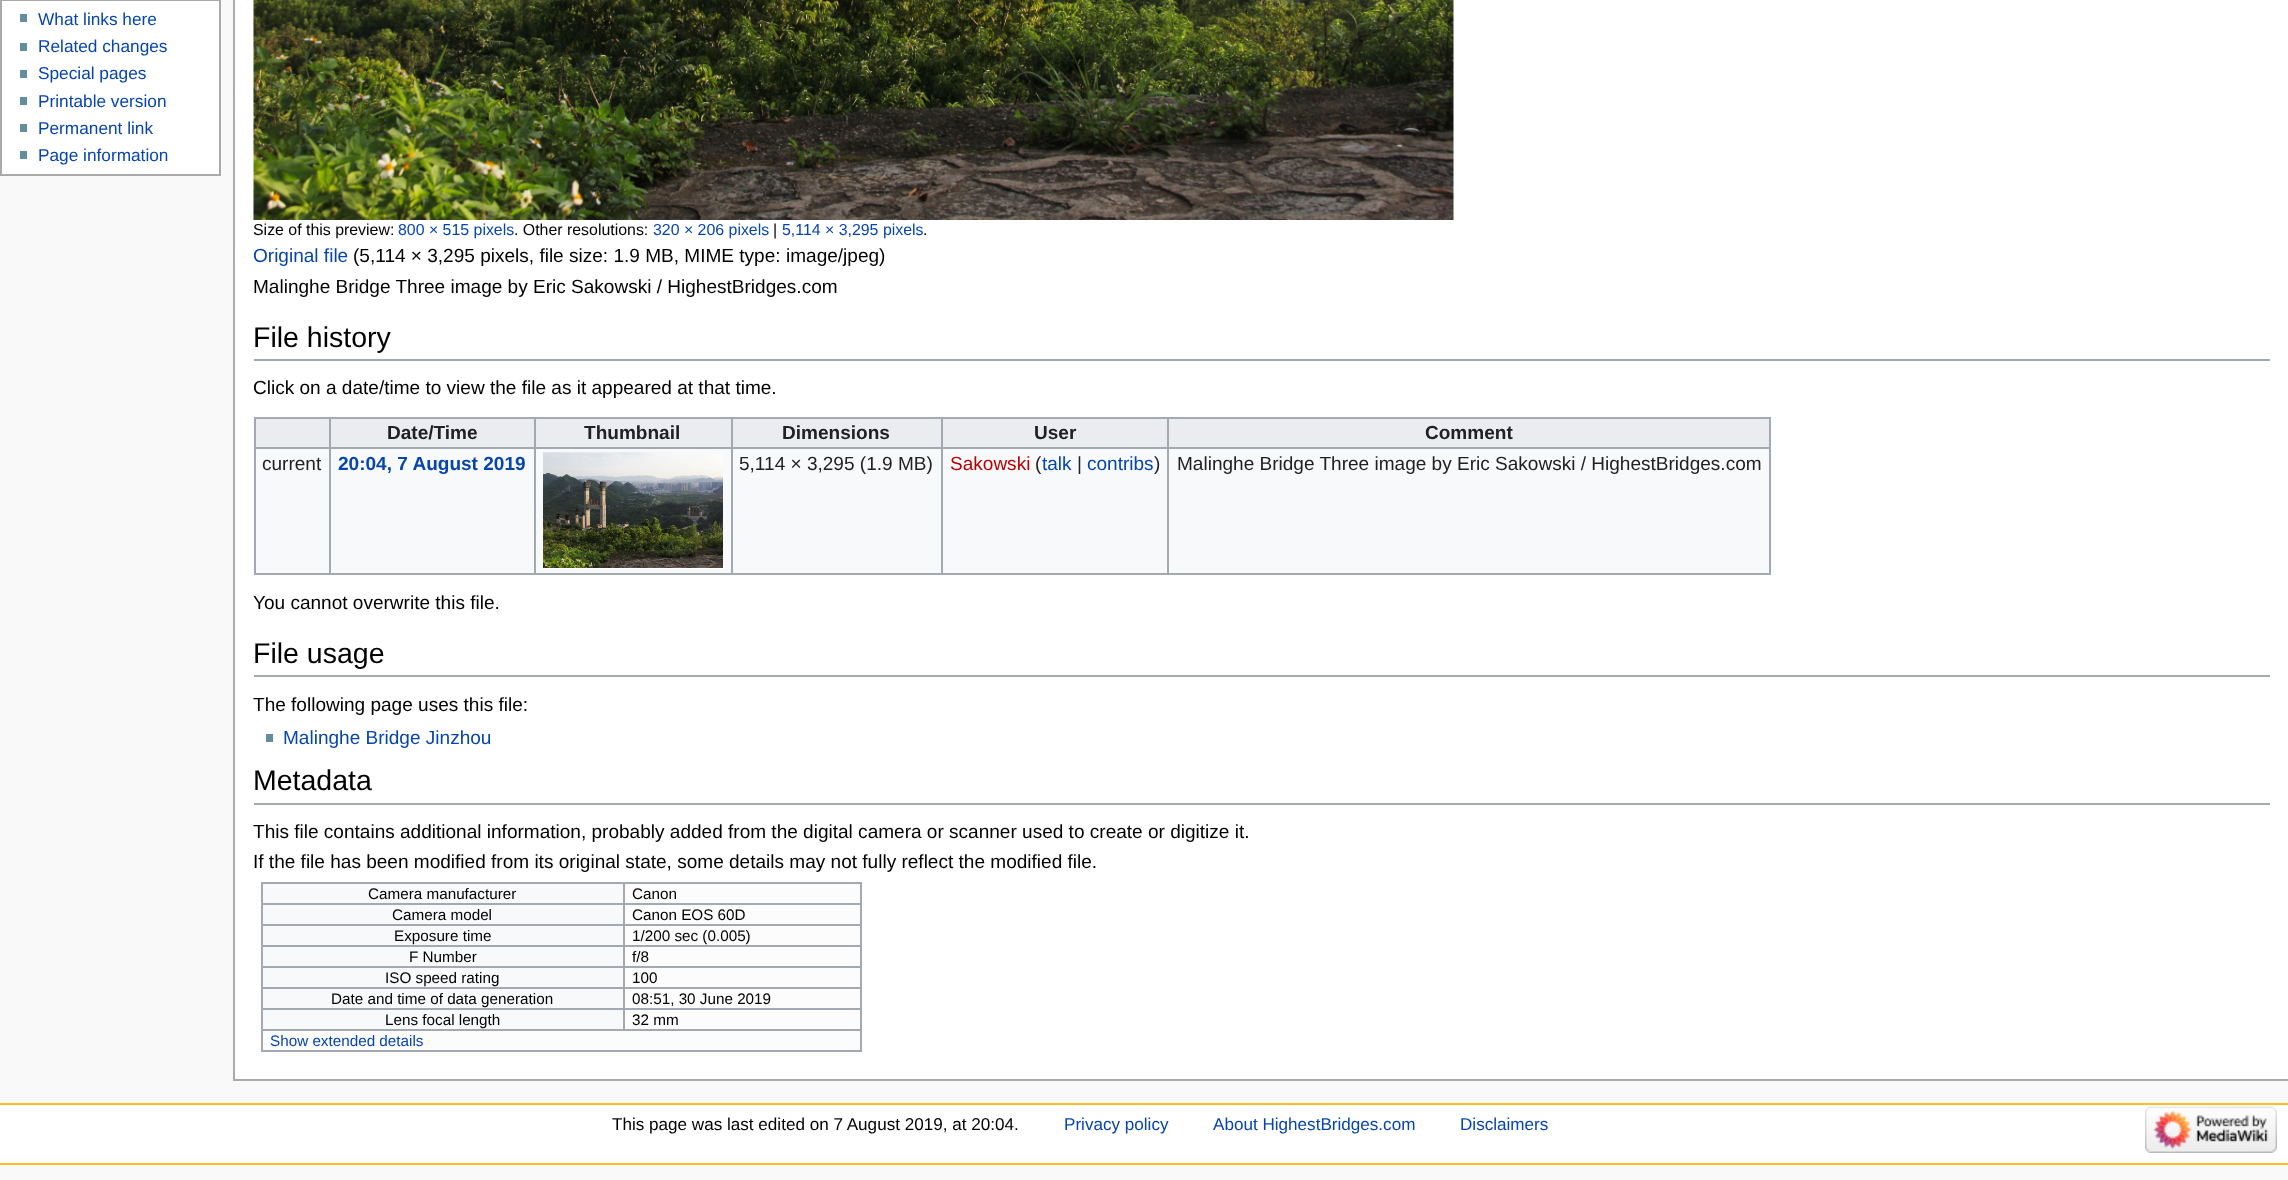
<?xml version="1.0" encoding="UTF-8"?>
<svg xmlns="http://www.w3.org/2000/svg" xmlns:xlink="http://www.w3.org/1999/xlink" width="2288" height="1180">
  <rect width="100%" height="100%" fill="#f9f9f9" />
  <rect x="1" y="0" width="219" height="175" fill="#ffffff" stroke="#aaaaaa" stroke-width="2" />
  <rect x="20" y="14" width="7" height="8" fill="#638c9c" />
  <rect x="20" y="43" width="7" height="8" fill="#638c9c" />
  <rect x="20" y="70" width="7" height="8" fill="#638c9c" />
  <rect x="20" y="97" width="7" height="8" fill="#638c9c" />
  <rect x="20" y="124" width="7" height="8" fill="#638c9c" />
  <rect x="20" y="151" width="7" height="8" fill="#638c9c" />
  <rect x="235" width="2053" height="1079" fill="#ffffff" />
  <rect x="233" y="1079" width="2055" height="2" fill="#aaaaaa" />
  <rect x="233" width="2" height="1080" fill="#aaaaaa" />
  <image x="253" y="0" width="1201" height="220" xlink:href="image1.png" />
  <rect x="254" y="359" width="2016" height="2" fill="#a2a9b1" />
  <rect x="256" y="449" width="1513" height="124" fill="#f8f9fa" />
  <rect x="254" y="417" width="1516" height="2" fill="#a2a9b1" />
  <rect x="1769" y="417" width="2" height="158" fill="#a2a9b1" />
  <rect x="254" y="573" width="1516" height="2" fill="#a2a9b1" />
  <rect x="254" y="417" width="2" height="158" fill="#a2a9b1" />
  <rect x="256" y="419" width="73" height="28" fill="#eaecf0" />
  <rect x="331" y="419" width="203" height="28" fill="#eaecf0" />
  <rect x="1167" y="447" width="603" height="2" fill="#a2a9b1" />
  <rect x="1167" y="447" width="2" height="128" fill="#a2a9b1" />
  <rect x="941" y="447" width="228" height="2" fill="#a2a9b1" />
  <rect x="941" y="447" width="2" height="128" fill="#a2a9b1" />
  <rect x="731" y="447" width="211" height="2" fill="#a2a9b1" />
  <rect x="731" y="447" width="2" height="128" fill="#a2a9b1" />
  <rect x="534" y="447" width="198" height="2" fill="#a2a9b1" />
  <rect x="534" y="447" width="2" height="128" fill="#a2a9b1" />
  <rect x="329" y="447" width="207" height="2" fill="#a2a9b1" />
  <rect x="329" y="447" width="2" height="128" fill="#a2a9b1" />
  <rect x="254" y="447" width="76" height="2" fill="#a2a9b1" />
  <rect x="329" y="417" width="2" height="32" fill="#a2a9b1" />
  <rect x="536" y="419" width="195" height="28" fill="#eaecf0" />
  <rect x="534" y="417" width="2" height="32" fill="#a2a9b1" />
  <rect x="733" y="419" width="208" height="28" fill="#eaecf0" />
  <rect x="731" y="417" width="2" height="32" fill="#a2a9b1" />
  <rect x="943" y="419" width="224" height="28" fill="#eaecf0" />
  <rect x="941" y="417" width="2" height="32" fill="#a2a9b1" />
  <rect x="1169" y="419" width="600" height="28" fill="#eaecf0" />
  <rect x="1167" y="417" width="2" height="32" fill="#a2a9b1" />
  <image x="543" y="452" width="180" height="116" xlink:href="image2.png" />
  <image x="543" y="452" width="96" height="1" xlink:href="image3.png" />
  <rect x="543" y="568" width="180" height="1" fill="#ffffff" />
  <rect x="254" y="675" width="2016" height="2" fill="#a2a9b1" />
  <rect x="266" y="734" width="7" height="8" fill="#638c9c" />
  <rect x="254" y="803" width="2016" height="2" fill="#a2a9b1" />
  <rect x="263" y="884" width="360" height="19" fill="#f8f9fa" />
  <rect x="623" y="882" width="238" height="2" fill="#a2a9b1" />
  <rect x="623" y="903" width="238" height="2" fill="#a2a9b1" />
  <rect x="623" y="924" width="238" height="2" fill="#a2a9b1" />
  <rect x="623" y="945" width="238" height="2" fill="#a2a9b1" />
  <rect x="623" y="966" width="238" height="2" fill="#a2a9b1" />
  <rect x="623" y="987" width="238" height="2" fill="#a2a9b1" />
  <rect x="623" y="1008" width="238" height="2" fill="#a2a9b1" />
  <rect x="261" y="1029" width="600" height="2" fill="#a2a9b1" />
  <rect x="623" y="1008" width="2" height="23" fill="#a2a9b1" />
  <rect x="261" y="1008" width="363" height="2" fill="#a2a9b1" />
  <rect x="623" y="987" width="2" height="23" fill="#a2a9b1" />
  <rect x="261" y="987" width="363" height="2" fill="#a2a9b1" />
  <rect x="623" y="966" width="2" height="23" fill="#a2a9b1" />
  <rect x="261" y="966" width="363" height="2" fill="#a2a9b1" />
  <rect x="623" y="945" width="2" height="23" fill="#a2a9b1" />
  <rect x="261" y="945" width="363" height="2" fill="#a2a9b1" />
  <rect x="623" y="924" width="2" height="23" fill="#a2a9b1" />
  <rect x="261" y="924" width="363" height="2" fill="#a2a9b1" />
  <rect x="623" y="903" width="2" height="23" fill="#a2a9b1" />
  <rect x="261" y="903" width="363" height="2" fill="#a2a9b1" />
  <rect x="623" y="882" width="2" height="23" fill="#a2a9b1" />
  <rect x="261" y="882" width="363" height="2" fill="#a2a9b1" />
  <rect x="860" y="1029" width="2" height="23" fill="#a2a9b1" />
  <rect x="261" y="1050" width="600" height="2" fill="#a2a9b1" />
  <rect x="261" y="1029" width="2" height="23" fill="#a2a9b1" />
  <rect x="261" y="1008" width="2" height="23" fill="#a2a9b1" />
  <rect x="261" y="987" width="2" height="23" fill="#a2a9b1" />
  <rect x="261" y="966" width="2" height="23" fill="#a2a9b1" />
  <rect x="261" y="945" width="2" height="23" fill="#a2a9b1" />
  <rect x="261" y="924" width="2" height="23" fill="#a2a9b1" />
  <rect x="261" y="903" width="2" height="23" fill="#a2a9b1" />
  <rect x="261" y="882" width="2" height="23" fill="#a2a9b1" />
  <rect x="625" y="884" width="235" height="19" fill="#fcfcfc" />
  <rect x="860" y="1008" width="2" height="23" fill="#a2a9b1" />
  <rect x="860" y="987" width="2" height="23" fill="#a2a9b1" />
  <rect x="860" y="966" width="2" height="23" fill="#a2a9b1" />
  <rect x="860" y="945" width="2" height="23" fill="#a2a9b1" />
  <rect x="860" y="924" width="2" height="23" fill="#a2a9b1" />
  <rect x="860" y="903" width="2" height="23" fill="#a2a9b1" />
  <rect x="860" y="882" width="2" height="23" fill="#a2a9b1" />
  <rect x="263" y="905" width="360" height="19" fill="#f8f9fa" />
  <rect x="625" y="905" width="235" height="19" fill="#fcfcfc" />
  <rect x="263" y="926" width="360" height="19" fill="#f8f9fa" />
  <rect x="625" y="926" width="235" height="19" fill="#fcfcfc" />
  <rect x="263" y="947" width="360" height="19" fill="#f8f9fa" />
  <rect x="625" y="947" width="235" height="19" fill="#fcfcfc" />
  <rect x="263" y="968" width="360" height="19" fill="#f8f9fa" />
  <rect x="625" y="968" width="235" height="19" fill="#fcfcfc" />
  <rect x="263" y="989" width="360" height="19" fill="#f8f9fa" />
  <rect x="625" y="989" width="235" height="19" fill="#fcfcfc" />
  <rect x="263" y="1010" width="360" height="19" fill="#f8f9fa" />
  <rect x="625" y="1010" width="235" height="19" fill="#fcfcfc" />
  <rect x="263" y="1031" width="597" height="19" fill="#fcfcfc" />
  <rect y="1105" width="2288" height="58" fill="#ffffff" />
  <rect y="1103" width="2288" height="2" fill="#fabd23" />
  <rect y="1163" width="2288" height="2" fill="#fabd23" />
  <image x="2145" y="1106" width="132" height="47" xlink:href="image4.png" />
  <text x="38" y="25" style="font-family: Liberation Sans; font-size: 17.25px; fill: #0645ad">What links here</text>
  <text x="38" y="52" style="font-family: Liberation Sans; font-size: 17.25px; fill: #0645ad">Related changes</text>
  <text x="38" y="79" style="font-family: Liberation Sans; font-size: 17.25px; fill: #0645ad">Special pages</text>
  <text x="38" y="107" style="font-family: Liberation Sans; font-size: 17.25px; fill: #0645ad">Printable version</text>
  <text x="38" y="134" style="font-family: Liberation Sans; font-size: 17.25px; fill: #0645ad">Permanent link</text>
  <text x="38" y="161" style="font-family: Liberation Sans; font-size: 17.25px; fill: #0645ad">Page information</text>
  <text x="253" y="235" style="font-family: Liberation Sans; font-size: 15.9px; fill: #000000">Size of this preview:</text>
  <text x="398" y="235" style="font-family: Liberation Sans; font-size: 15.9px; fill: #0645ad">800 × 515 pixels</text>
  <text x="514" y="235" style="font-family: Liberation Sans; font-size: 15.9px; fill: #000000">. Other resolutions:</text>
  <text x="653" y="235" style="font-family: Liberation Sans; font-size: 15.9px; fill: #0645ad">320 × 206 pixels</text>
  <text x="773" y="235" style="font-family: Liberation Sans; font-size: 15.9px; fill: #000000">|</text>
  <text x="782" y="235" style="font-family: Liberation Sans; font-size: 15.9px; fill: #0645ad">5,114 × 3,295 pixels</text>
  <text x="923" y="235" style="font-family: Liberation Sans; font-size: 15.9px; fill: #000000">.</text>
  <text x="253" y="262" style="font-family: Liberation Sans; font-size: 19.05px; fill: #0645ad">Original file</text>
  <text x="353" y="262" style="font-family: Liberation Sans; font-size: 19.05px; fill: #000000">(5,114 × 3,295 pixels, file size: 1.9 MB, MIME type:</text>
  <text x="786" y="262" style="font-family: Liberation Sans; font-size: 19.05px; fill: #000000">image/jpeg)</text>
  <text x="253" y="293" style="font-family: Liberation Sans; font-size: 19.05px; fill: #000000">Malinghe Bridge Three image by Eric Sakowski / HighestBridges.com</text>
  <text x="253" y="347" style="font-family: Liberation Sans; font-size: 28.5px; fill: #000000">File history</text>
  <text x="253" y="394" style="font-family: Liberation Sans; font-size: 19.05px; fill: #000000">Click on a date/time to view the file as it appeared at that time.</text>
  <text x="387" y="439" style="font-family: Liberation Sans; font-size: 19.05px; font-weight: bold; fill: #202122">Date/Time</text>
  <text x="584" y="439" style="font-family: Liberation Sans; font-size: 19.05px; font-weight: bold; fill: #202122">Thumbnail</text>
  <text x="782" y="439" style="font-family: Liberation Sans; font-size: 19.05px; font-weight: bold; fill: #202122">Dimensions</text>
  <text x="1034" y="439" style="font-family: Liberation Sans; font-size: 19.05px; font-weight: bold; fill: #202122">User</text>
  <text x="1425" y="439" style="font-family: Liberation Sans; font-size: 19.05px; font-weight: bold; fill: #202122">Comment</text>
  <text x="262" y="470" style="font-family: Liberation Sans; font-size: 19.05px; fill: #202122">current</text>
  <text x="338" y="470" style="font-family: Liberation Sans; font-size: 19.05px; font-weight: bold; fill: #0645ad">20:04, 7 August 2019</text>
  <text x="739" y="470" style="font-family: Liberation Sans; font-size: 19.05px; fill: #202122">5,114 × 3,295 (1.9 MB)</text>
  <text x="950" y="470" style="font-family: Liberation Sans; font-size: 19.05px; fill: #ba0000">Sakowski</text>
  <text x="1035" y="470" style="font-family: Liberation Sans; font-size: 19.05px; fill: #202122">(</text>
  <text x="1042" y="470" style="font-family: Liberation Sans; font-size: 19.05px; fill: #0645ad">talk</text>
  <text x="1077" y="470" style="font-family: Liberation Sans; font-size: 19.05px; fill: #202122">|</text>
  <text x="1087" y="470" style="font-family: Liberation Sans; font-size: 19.05px; fill: #0645ad">contribs</text>
  <text x="1154" y="470" style="font-family: Liberation Sans; font-size: 19.05px; fill: #202122">)</text>
  <text x="1177" y="470" style="font-family: Liberation Sans; font-size: 19.05px; fill: #202122">Malinghe Bridge Three image by Eric Sakowski / HighestBridges.com</text>
  <text x="253" y="609" style="font-family: Liberation Sans; font-size: 19.05px; fill: #000000">You cannot overwrite this file.</text>
  <text x="253" y="663" style="font-family: Liberation Sans; font-size: 28.5px; fill: #000000">File usage</text>
  <text x="253" y="711" style="font-family: Liberation Sans; font-size: 19.05px; fill: #000000">The following page uses this file:</text>
  <text x="283" y="744" style="font-family: Liberation Sans; font-size: 19.05px; fill: #0645ad">Malinghe Bridge Jinzhou</text>
  <text x="253" y="790" style="font-family: Liberation Sans; font-size: 28.5px; fill: #000000">Metadata</text>
  <text x="253" y="838" style="font-family: Liberation Sans; font-size: 19.05px; fill: #000000">This file contains additional information, probably added from the digital camera or scanner used to create or digitize it.</text>
  <text x="253" y="868" style="font-family: Liberation Sans; font-size: 19.05px; fill: #000000">If the file has been modified from its original state, some details may not fully reflect the modified file.</text>
  <text x="368" y="899" style="font-family: Liberation Sans; font-size: 15.25px; fill: #000000">Camera manufacturer</text>
  <text x="632" y="899" style="font-family: Liberation Sans; font-size: 15.25px; fill: #000000">Canon</text>
  <text x="392" y="920" style="font-family: Liberation Sans; font-size: 15.25px; fill: #000000">Camera model</text>
  <text x="632" y="920" style="font-family: Liberation Sans; font-size: 15.25px; fill: #000000">Canon EOS 60D</text>
  <text x="394" y="941" style="font-family: Liberation Sans; font-size: 15.25px; fill: #000000">Exposure time</text>
  <text x="632" y="941" style="font-family: Liberation Sans; font-size: 15.25px; fill: #000000">1/200 sec (0.005)</text>
  <text x="409" y="962" style="font-family: Liberation Sans; font-size: 15.25px; fill: #000000">F Number</text>
  <text x="632" y="962" style="font-family: Liberation Sans; font-size: 15.25px; fill: #000000">f/8</text>
  <text x="385" y="983" style="font-family: Liberation Sans; font-size: 15.25px; fill: #000000">ISO speed rating</text>
  <text x="632" y="983" style="font-family: Liberation Sans; font-size: 15.25px; fill: #000000">100</text>
  <text x="331" y="1004" style="font-family: Liberation Sans; font-size: 15.25px; fill: #000000">Date and time of data generation</text>
  <text x="632" y="1004" style="font-family: Liberation Sans; font-size: 15.25px; fill: #000000">08:51, 30 June 2019</text>
  <text x="385" y="1025" style="font-family: Liberation Sans; font-size: 15.25px; fill: #000000">Lens focal length</text>
  <text x="632" y="1025" style="font-family: Liberation Sans; font-size: 15.25px; fill: #000000">32 mm</text>
  <text x="270" y="1046" style="font-family: Liberation Sans; font-size: 15.25px; fill: #0645ad">Show extended details</text>
  <text x="612" y="1130" style="font-family: Liberation Sans; font-size: 17.1px; fill: #000000">This page was last edited on 7 August 2019, at 20:04.</text>
  <text x="1064" y="1130" style="font-family: Liberation Sans; font-size: 17.1px; fill: #0645ad">Privacy policy</text>
  <text x="1213" y="1130" style="font-family: Liberation Sans; font-size: 17.1px; fill: #0645ad">About HighestBridges.com</text>
  <text x="1460" y="1130" style="font-family: Liberation Sans; font-size: 17.1px; fill: #0645ad">Disclaimers</text>
</svg>
